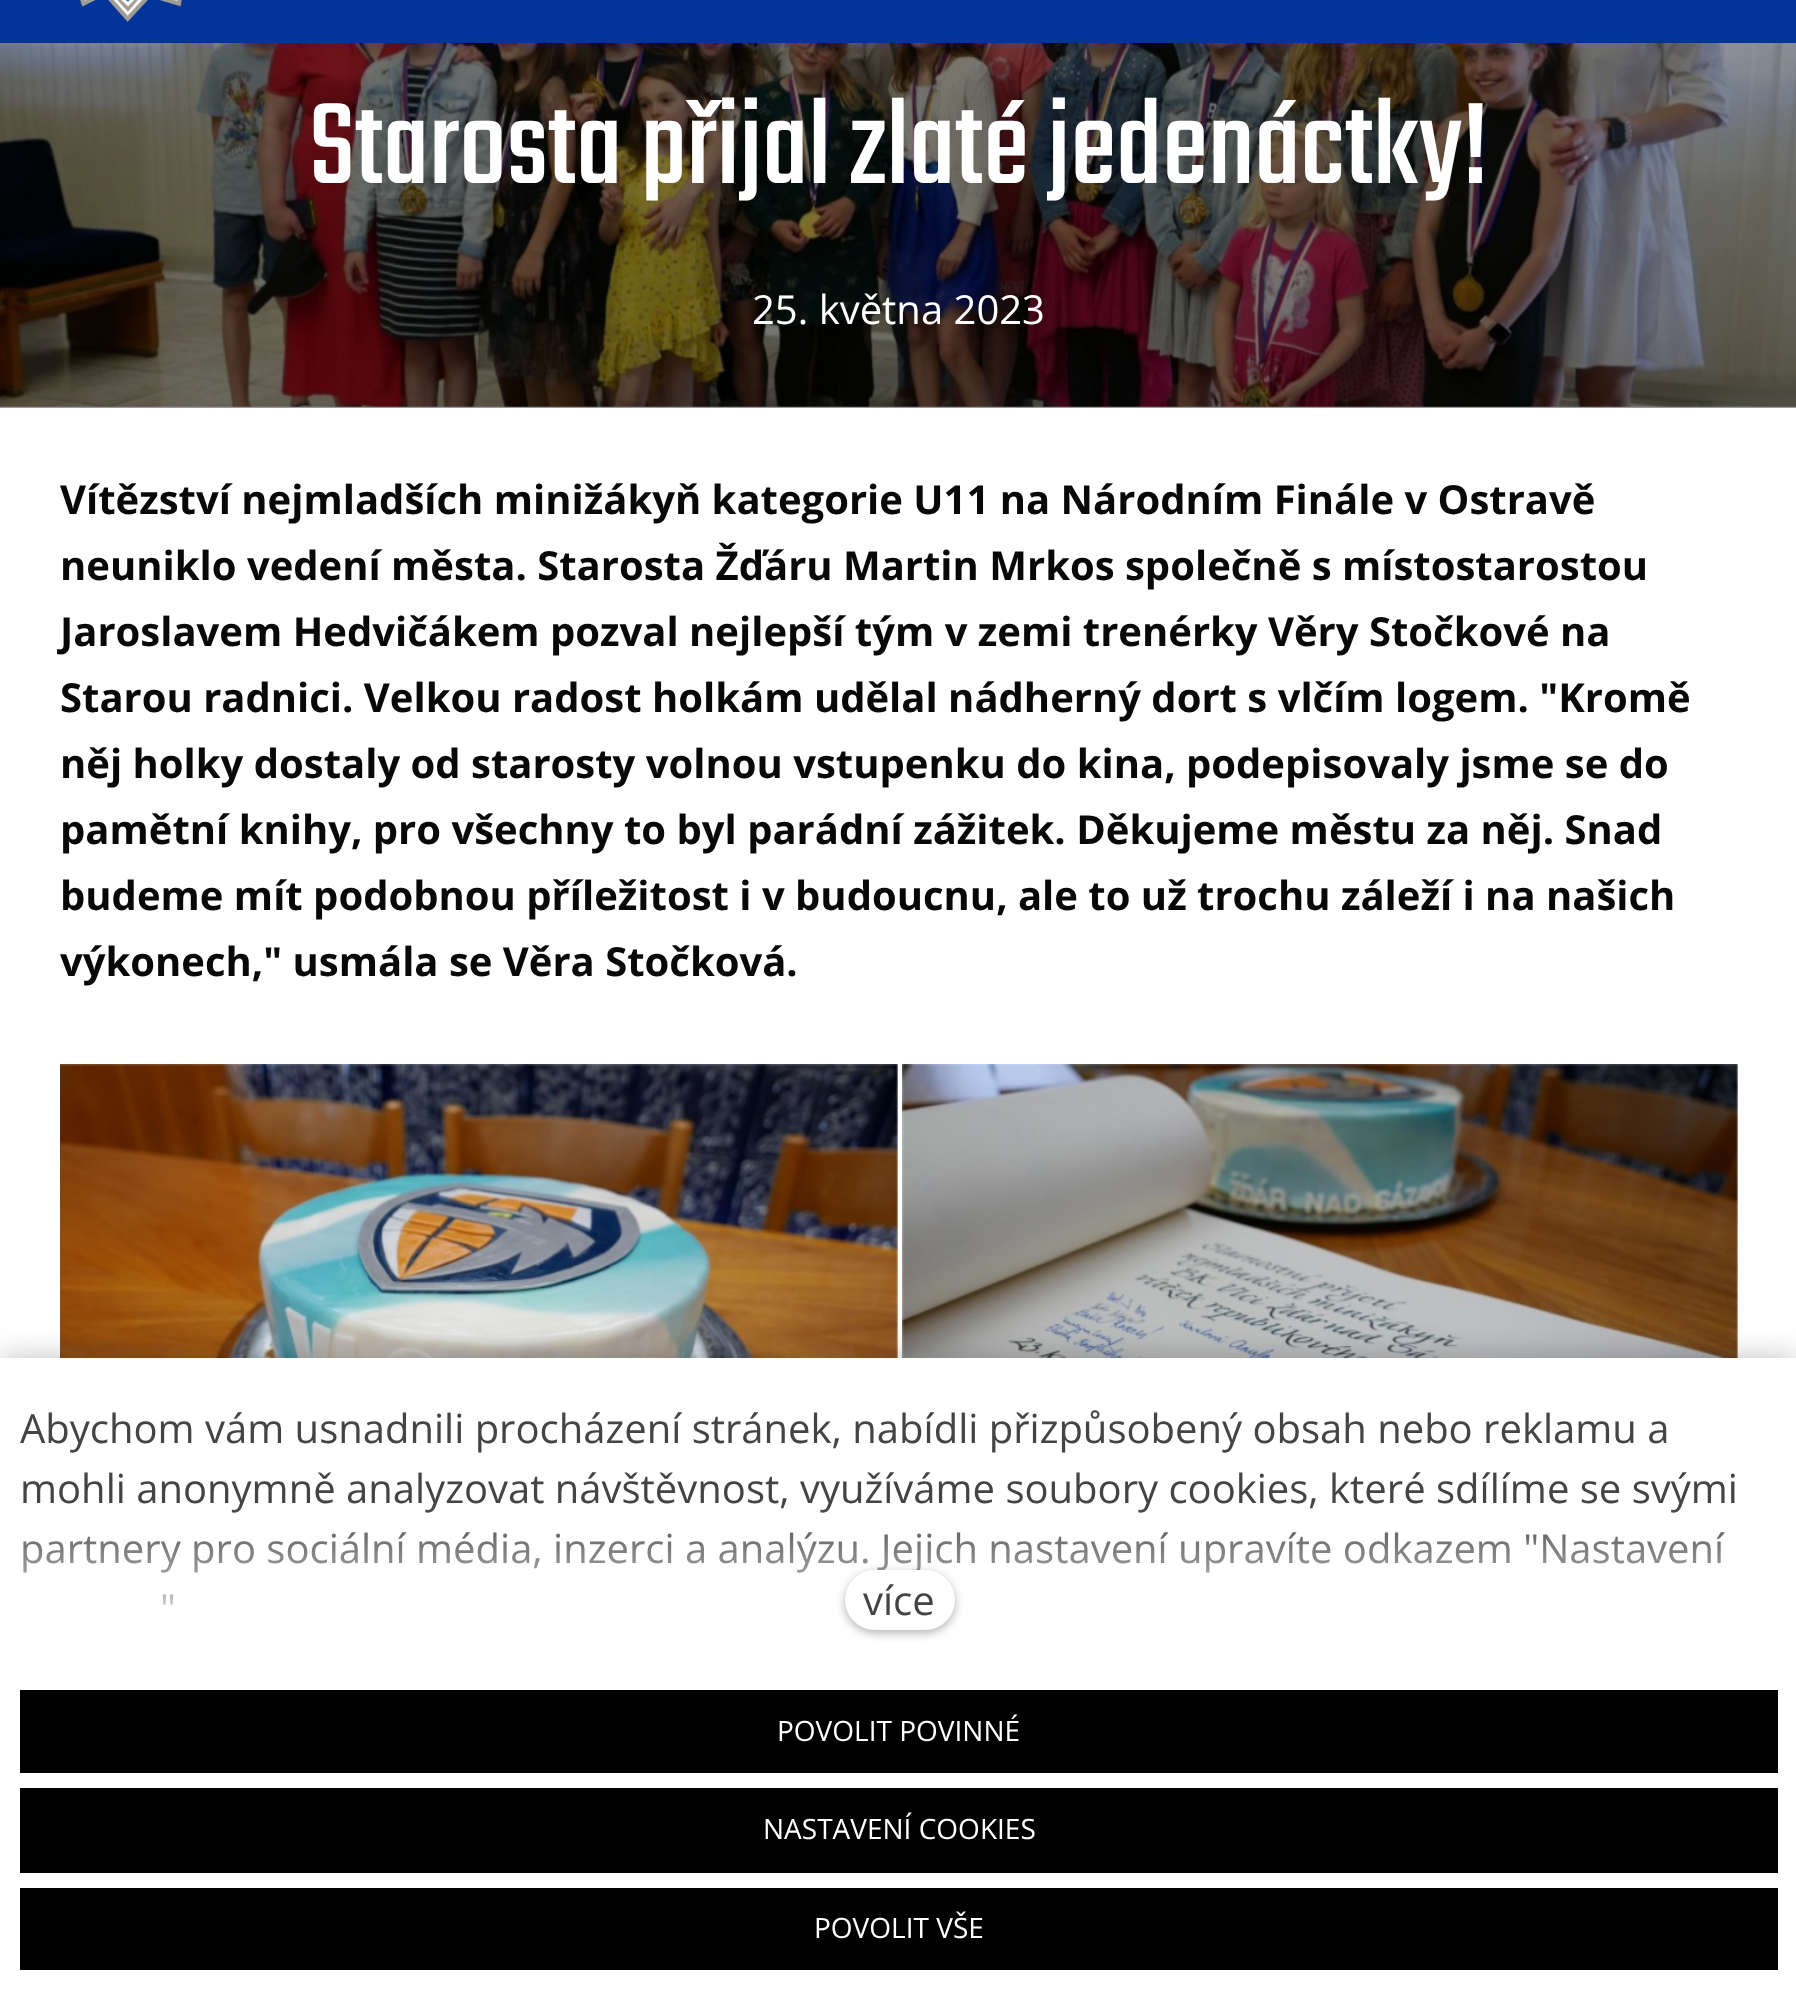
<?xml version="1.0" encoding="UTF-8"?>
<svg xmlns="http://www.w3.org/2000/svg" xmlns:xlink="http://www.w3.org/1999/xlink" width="1796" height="2010">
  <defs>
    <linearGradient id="g1" gradientUnits="userSpaceOnUse" x1="899" y1="1650" x2="899" y2="1505"><stop offset="0" stop-color="#ffffff" /><stop offset="1" stop-color="#ffffff" stop-opacity="0" /></linearGradient>
  </defs>
  <rect width="100%" height="100%" fill="#ffffff" />
  <rect y="406" width="1796" height="2" fill="#999999" />
  <rect width="1796" height="43" fill="#003498" />
  <image x="80" y="0" width="102" height="22" xlink:href="image1.png" />
  <image x="0" y="43" width="1796" height="364" xlink:href="image2.png" />
  <image x="60" y="1064" width="838" height="294" xlink:href="image3.png" />
  <image x="902" y="1064" width="836" height="294" xlink:href="image4.png" />
  <rect y="1358" width="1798" height="652" fill="#000000" fill-opacity="0.25" filter="blur(15px)" />
  <rect y="1358" width="1796" height="652" fill="#ffffff" />
  <rect x="20" y="1690" width="1758" height="83" fill="#000000" />
  <rect x="20" y="1788" width="1758" height="85" fill="#000000" />
  <rect x="20" y="1888" width="1758" height="82" fill="#000000" />
  <text x="309" y="183" style="font-family: Teko; font-size: 127.5px; fill: #ffffff">Starosta přijal zlaté jedenáctky!</text>
  <text x="752" y="324" style="font-family: Open Sans; font-size: 40px; fill: #ffffff">25. května 2023</text>
  <text x="60" y="514" style="font-family: Open Sans; font-size: 40px; font-weight: bold; fill: #080808">Vítězství nejmladších minižákyň kategorie U11 na Národním Finále v Ostravě</text>
  <text x="60" y="580" style="font-family: Open Sans; font-size: 40px; font-weight: bold; fill: #080808">neuniklo vedení města. Starosta Žďáru Martin Mrkos společně s místostarostou</text>
  <text x="60" y="646" style="font-family: Open Sans; font-size: 40px; font-weight: bold; fill: #080808">Jaroslavem Hedvičákem pozval nejlepší tým v zemi trenérky Věry Stočkové na</text>
  <text x="60" y="712" style="font-family: Open Sans; font-size: 40px; font-weight: bold; fill: #080808">Starou radnici. Velkou radost holkám udělal nádherný dort s vlčím logem. "Kromě</text>
  <text x="60" y="778" style="font-family: Open Sans; font-size: 40px; font-weight: bold; fill: #080808">něj holky dostaly od starosty volnou vstupenku do kina, podepisovaly jsme se do</text>
  <text x="60" y="844" style="font-family: Open Sans; font-size: 40px; font-weight: bold; fill: #080808">pamětní knihy, pro všechny to byl parádní zážitek. Děkujeme městu za něj. Snad</text>
  <text x="60" y="910" style="font-family: Open Sans; font-size: 40px; font-weight: bold; fill: #080808">budeme mít podobnou příležitost i v budoucnu, ale to už trochu záleží i na našich</text>
  <text x="60" y="976" style="font-family: Open Sans; font-size: 40px; font-weight: bold; fill: #080808">výkonech," usmála se Věra Stočková.</text>
  <text x="20" y="1443" style="font-family: Open Sans; font-size: 40px; fill: #444444">Abychom vám usnadnili procházení stránek, nabídli přizpůsobený obsah nebo reklamu a</text>
  <text x="20" y="1503" style="font-family: Open Sans; font-size: 40px; fill: #444444">mohli anonymně analyzovat návštěvnost, využíváme soubory cookies, které sdílíme se svými</text>
  <text x="20" y="1563" style="font-family: Open Sans; font-size: 40px; fill: #444444">partnery pro sociální média, inzerci a analýzu. Jejich nastavení upravíte odkazem "Nastavení</text>
  <text x="160" y="1623" style="font-family: Open Sans; font-size: 40px; fill: #444444">"</text>
  <rect x="23" y="1508" width="1702" height="97" fill="url(#g1)" />
  <rect x="845" y="1573" width="110" height="60" rx="30" fill="#000000" fill-opacity="0.3" filter="blur(5px)" />
  <rect x="845" y="1570" width="110" height="60" rx="30" fill="#ffffff" />
  <text x="863" y="1615" style="font-family: Open Sans; font-size: 40px; fill: #444444">více</text>
  <text x="777" y="1741" style="font-family: Open Sans; font-size: 28px; fill: #ffffff">POVOLIT POVINNÉ</text>
  <text x="763" y="1839" style="font-family: Open Sans; font-size: 28px; fill: #ffffff">NASTAVENÍ COOKIES</text>
  <text x="814" y="1938" style="font-family: Open Sans; font-size: 28px; fill: #ffffff">POVOLIT VŠE</text>
</svg>
